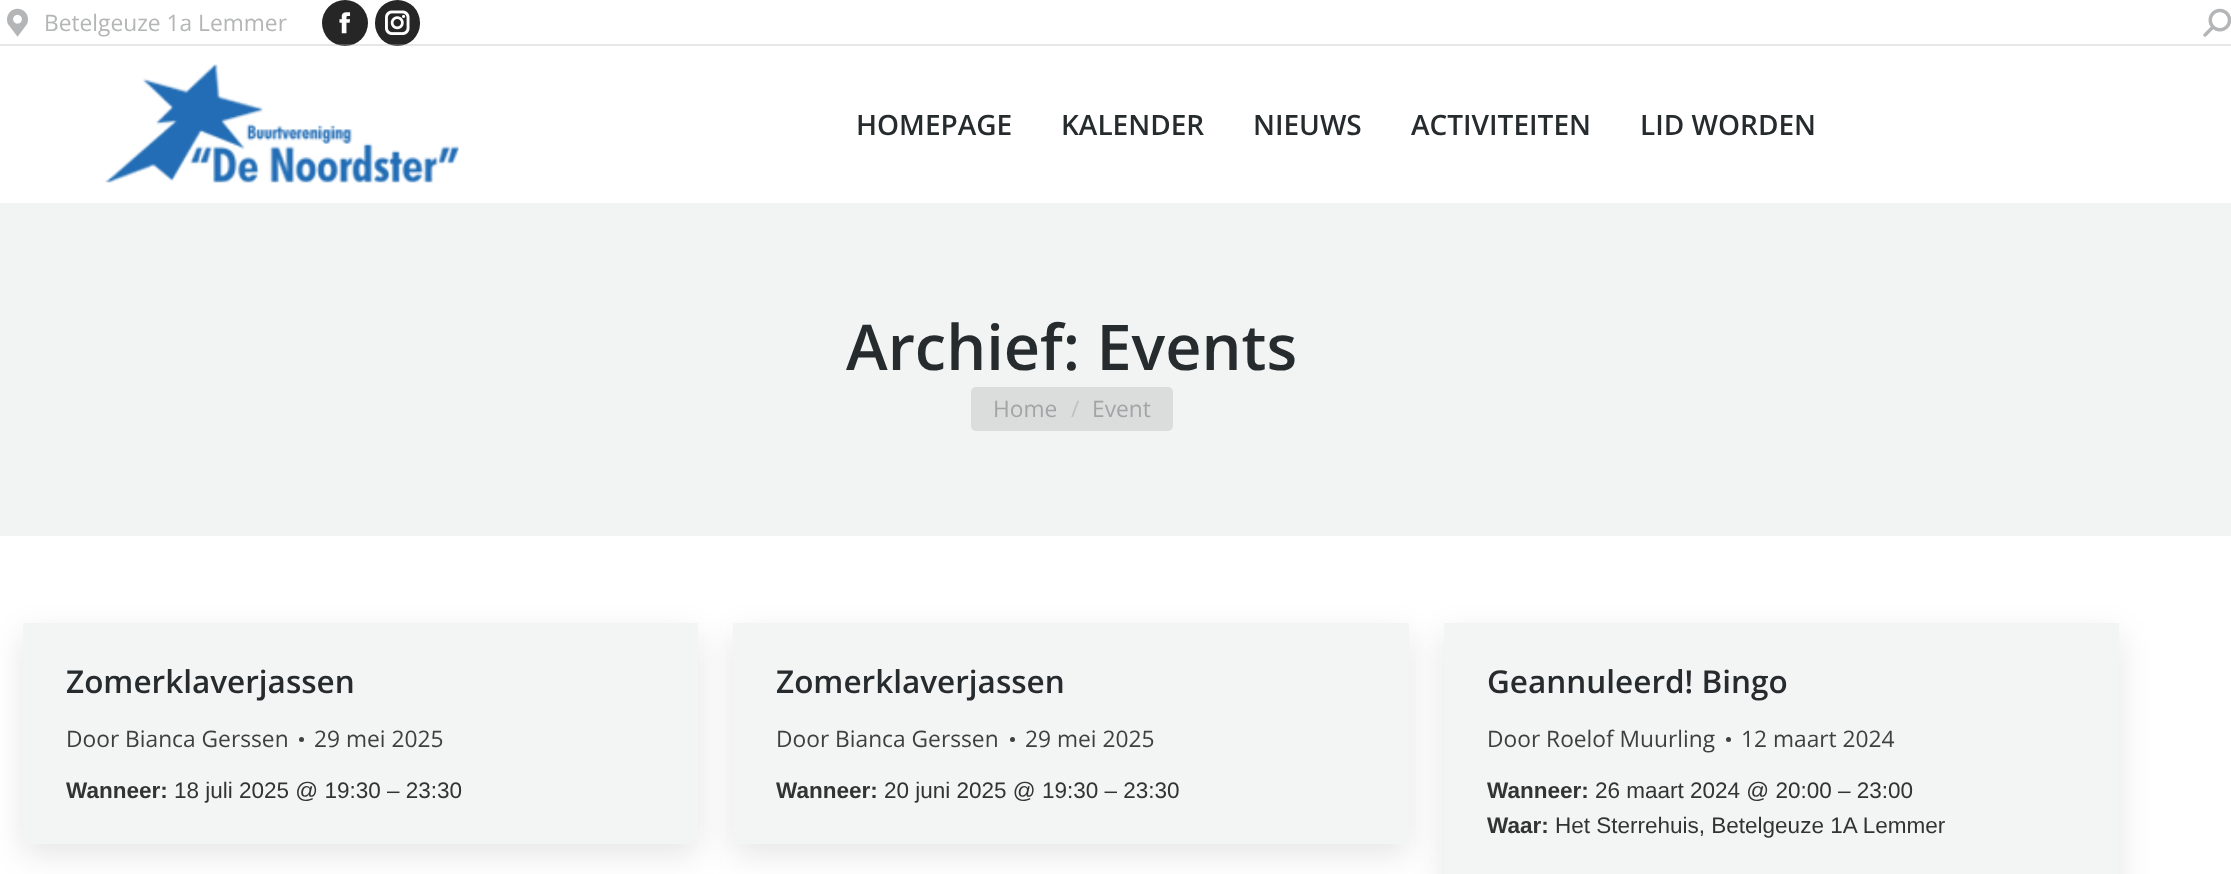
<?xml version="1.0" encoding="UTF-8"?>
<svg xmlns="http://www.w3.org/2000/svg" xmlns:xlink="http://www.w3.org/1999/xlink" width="2231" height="874">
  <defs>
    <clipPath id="clip1"><path d="M 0 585 h 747 v 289 h -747 z m 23 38 h 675 v 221 h -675 z" clip-rule="evenodd" /></clipPath>
    <clipPath id="clip2"><path d="M 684 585 h 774 v 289 h -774 z m 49 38 h 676 v 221 h -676 z" clip-rule="evenodd" /></clipPath>
  </defs>
  <rect width="100%" height="100%" fill="#ffffff" />
  <image x="7" y="8" width="21" height="29" xlink:href="image1.png" />
  <circle cx="345" cy="23" r="23" fill="#262626" />
  <image x="339" y="12" width="12" height="22" xlink:href="image2.png" />
  <rect x="375" width="45" height="46" rx="22.5" fill="#262626" />
  <image x="385" y="10" width="25" height="25" xlink:href="image3.png" />
  <image x="2203" y="8" width="28" height="29" xlink:href="image4.png" />
  <rect y="44" width="2231" height="2" fill="#b3b5b6" fill-opacity="0.32" />
  <image x="105" y="64" width="354" height="119" xlink:href="image5.png" />
  <rect y="203" width="2231" height="333" fill="#f2f3f3" />
  <rect x="971" y="387" width="202" height="44" rx="5" fill="#dbdddd" />
  <g clip-path="url(#clip1)">
    <rect x="23" y="634" width="675" height="220" fill="#000000" fill-opacity="0.1" filter="blur(16px)" />
  </g>
  <rect x="23" y="623" width="675" height="221" fill="#f2f3f3" fill-opacity="0.9" />
  <circle cx="301.5" cy="739.5" r="2.5" fill="#3f3f3f" />
  <g clip-path="url(#clip2)">
    <rect x="733" y="634" width="676" height="220" fill="#000000" fill-opacity="0.1" filter="blur(16px)" />
  </g>
  <rect x="733" y="623" width="676" height="221" fill="#f2f3f3" fill-opacity="0.9" />
  <circle cx="1012.5" cy="739.5" r="2.5" fill="#3f3f3f" />
  <rect x="1444" y="634" width="675" height="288" fill="#000000" fill-opacity="0.1" filter="blur(16px)" />
  <rect x="1444" y="623" width="675" height="251" fill="#f3f4f4" />
  <circle cx="1728.5" cy="739.5" r="2.5" fill="#3f3f3f" />
  <text x="44" y="31" style="font-family: Open Sans; font-size: 22.75px; fill: #b3b5b6">Betelgeuze 1a Lemmer</text>
  <text x="856" y="135" style="font-family: Open Sans; font-size: 28px; font-weight: 600; fill: #262b2e">HOMEPAGE</text>
  <text x="1061" y="135" style="font-family: Open Sans; font-size: 28px; font-weight: 600; fill: #262b2e">KALENDER</text>
  <text x="1253" y="135" style="font-family: Open Sans; font-size: 28px; font-weight: 600; fill: #262b2e">NIEUWS</text>
  <text x="1411" y="135" style="font-family: Open Sans; font-size: 28px; font-weight: 600; fill: #262b2e">ACTIVITEITEN</text>
  <text x="1640" y="135" style="font-family: Open Sans; font-size: 28px; font-weight: 600; fill: #262b2e">LID WORDEN</text>
  <text x="846" y="370" style="font-family: Open Sans; font-size: 63px; font-weight: 600; fill: #262b2e">Archief: Events</text>
  <text x="993" y="417" style="font-family: Open Sans; font-size: 22.75px; fill: #a2a5a6">Home</text>
  <text x="1071" y="417" style="font-family: Open Sans; font-size: 22.75px; fill: #bfc1c2">/</text>
  <text x="1092" y="417" style="font-family: Open Sans; font-size: 22.75px; fill: #a2a5a6">Event</text>
  <text x="66" y="693" style="font-family: Open Sans; font-size: 31.5px; font-weight: 600; fill: #262b2e">Zomerklaverjassen</text>
  <text x="66" y="747" style="font-family: Open Sans; font-size: 22.75px; fill: #3f3f3f">Door Bianca Gerssen</text>
  <text x="314" y="747" style="font-family: Open Sans; font-size: 22.75px; fill: #3f3f3f">29 mei 2025</text>
  <text x="66" y="798" style="font-family: Liberation Sans; font-size: 22.5px; font-weight: bold; fill: #333333">Wanneer:</text>
  <text x="174" y="798" style="font-family: Liberation Sans; font-size: 22.5px; fill: #333333">18 juli 2025 @ 19:30 – 23:30</text>
  <text x="776" y="693" style="font-family: Open Sans; font-size: 31.5px; font-weight: 600; fill: #262b2e">Zomerklaverjassen</text>
  <text x="776" y="747" style="font-family: Open Sans; font-size: 22.75px; fill: #3f3f3f">Door Bianca Gerssen</text>
  <text x="1025" y="747" style="font-family: Open Sans; font-size: 22.75px; fill: #3f3f3f">29 mei 2025</text>
  <text x="776" y="798" style="font-family: Liberation Sans; font-size: 22.5px; font-weight: bold; fill: #333333">Wanneer:</text>
  <text x="884" y="798" style="font-family: Liberation Sans; font-size: 22.5px; fill: #333333">20 juni 2025 @ 19:30 – 23:30</text>
  <text x="1487" y="693" style="font-family: Open Sans; font-size: 31.5px; font-weight: 600; fill: #262b2e">Geannuleerd! Bingo</text>
  <text x="1487" y="747" style="font-family: Open Sans; font-size: 22.75px; fill: #3f3f3f">Door Roelof Muurling</text>
  <text x="1741" y="747" style="font-family: Open Sans; font-size: 22.75px; fill: #3f3f3f">12 maart 2024</text>
  <text x="1487" y="798" style="font-family: Liberation Sans; font-size: 22.5px; font-weight: bold; fill: #333333">Wanneer:</text>
  <text x="1595" y="798" style="font-family: Liberation Sans; font-size: 22.5px; fill: #333333">26 maart 2024 @ 20:00 – 23:00</text>
  <text x="1487" y="833" style="font-family: Liberation Sans; font-size: 22.5px; font-weight: bold; fill: #333333">Waar:</text>
  <text x="1555" y="833" style="font-family: Liberation Sans; font-size: 22.5px; fill: #333333">Het Sterrehuis, Betelgeuze 1A Lemmer</text>
</svg>
